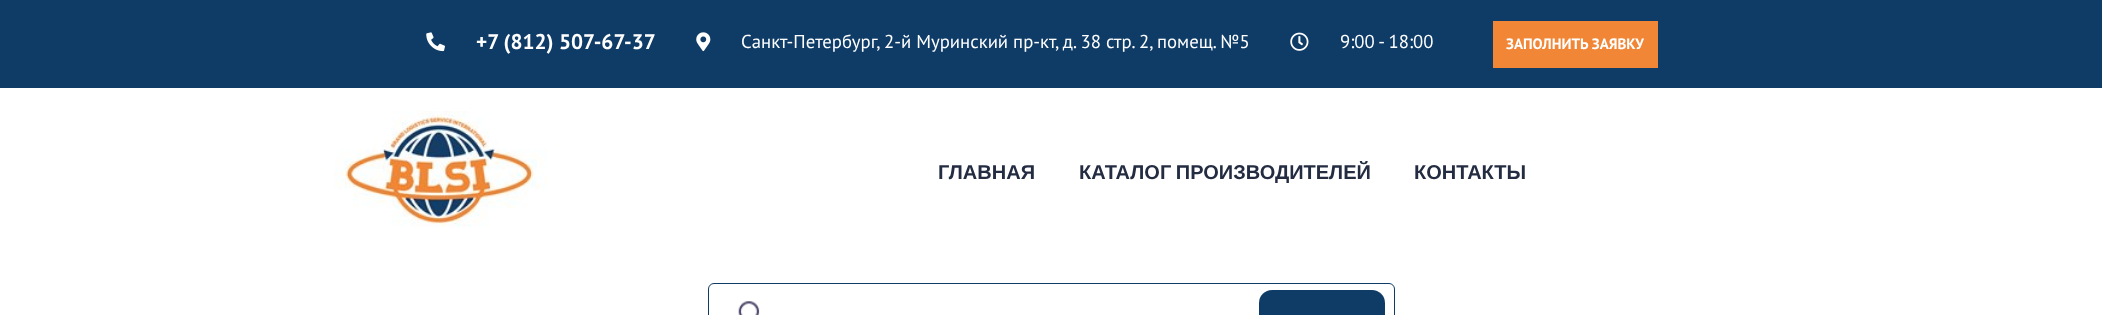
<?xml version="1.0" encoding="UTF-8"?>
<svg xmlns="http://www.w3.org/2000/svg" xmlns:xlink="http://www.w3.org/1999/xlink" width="2102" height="315">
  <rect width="100%" height="100%" fill="#ffffff" />
  <rect width="2102" height="88" fill="#0f3c67" />
  <image x="426" y="32" width="19" height="20" xlink:href="image1.png" />
  <image x="696" y="32" width="15" height="20" xlink:href="image2.png" />
  <image x="1290" y="32" width="19" height="19" xlink:href="image3.png" />
  <rect x="1493" y="21" width="165" height="47" fill="#f18636" />
  <image x="334" y="111" width="213" height="116" xlink:href="image4.png" />
  <rect x="708.5" y="283.5" width="686" height="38" rx="5.5" fill="none" stroke="#0f3c67" />
  <image x="738" y="301" width="22" height="14" xlink:href="image5.png" />
  <rect x="1259" y="290" width="126" height="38" rx="13" fill="#0f3c67" />
  <text x="476" y="49" style="font-family: PT Sans; font-size: 21.25px; font-weight: bold; fill: #ffffff">+7 (812) 507-67-37</text>
  <text x="741" y="48" style="font-family: PT Sans; font-size: 18.75px; fill: #ffffff">Санкт-Петербург, 2-й Муринский пр-кт, д. 38 стр. 2, помещ. №5</text>
  <text x="1340" y="48" style="font-family: PT Sans; font-size: 18.75px; fill: #ffffff">9:00 - 18:00</text>
  <text x="1506" y="49" style="font-family: PT Sans; font-size: 15px; font-weight: bold; fill: #ffffff">ЗАПОЛНИТЬ ЗАЯВКУ</text>
  <text x="938" y="179" style="font-family: Liberation Sans; font-size: 20px; font-weight: bold; fill: #242c42">ГЛАВНАЯ</text>
  <text x="1079" y="179" word-spacing="-1" style="font-family: Liberation Sans; font-size: 20px; font-weight: bold; fill: #242c42">КАТАЛОГ ПРОИЗВОДИТЕЛЕЙ</text>
  <text x="1414" y="179" style="font-family: Liberation Sans; font-size: 20px; font-weight: bold; fill: #242c42">КОНТАКТЫ</text>
</svg>
